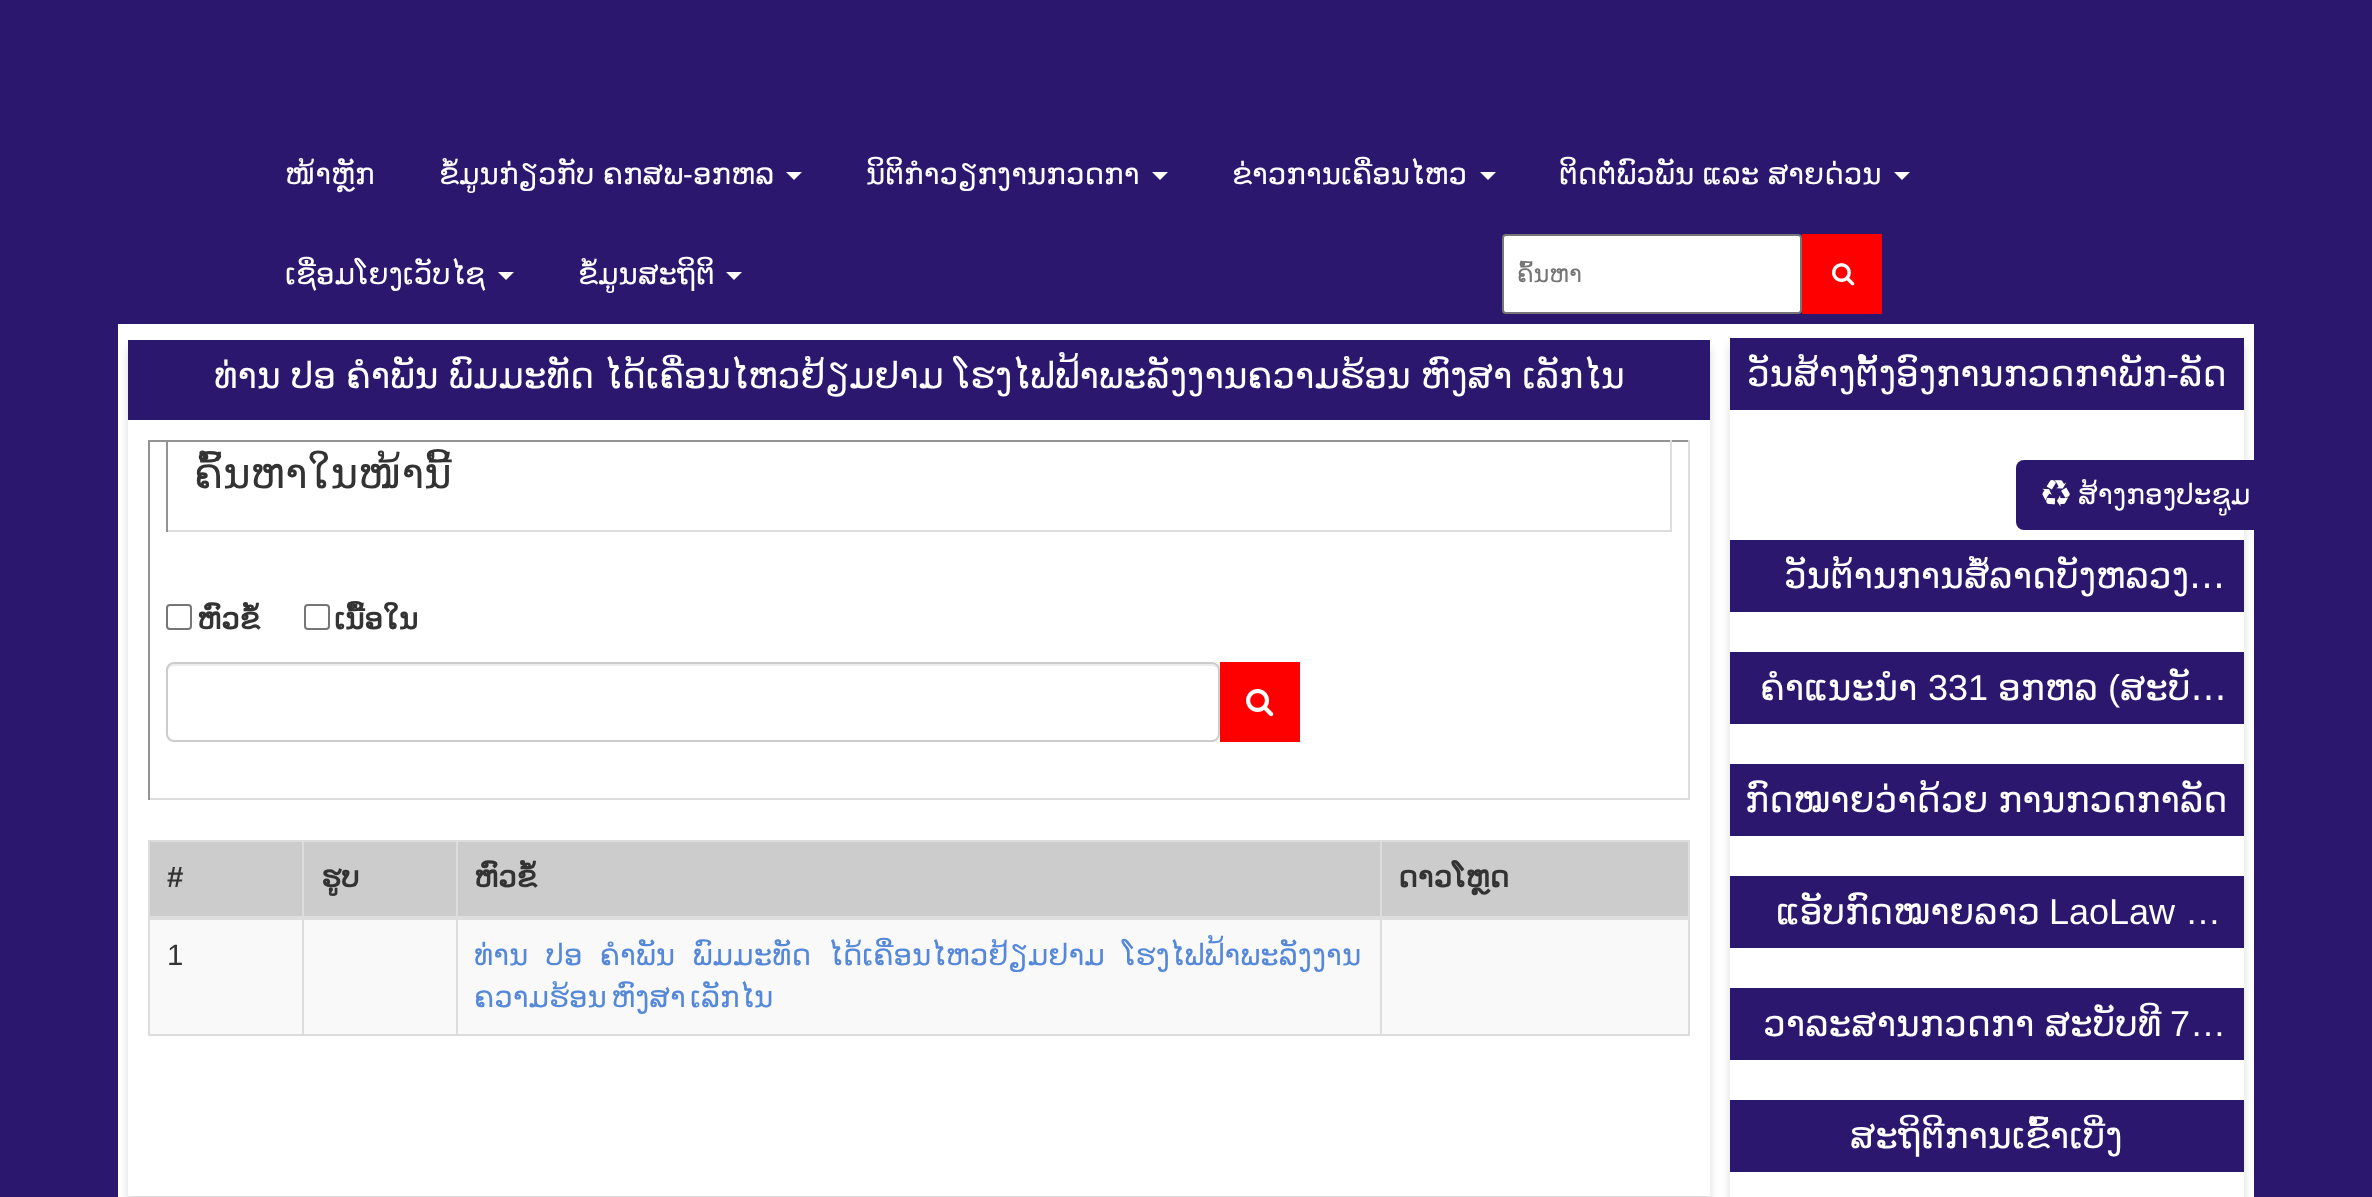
<?xml version="1.0" encoding="UTF-8"?>
<svg xmlns="http://www.w3.org/2000/svg" xmlns:xlink="http://www.w3.org/1999/xlink" width="2372" height="1197">
  <defs>
    <clipPath id="clip1"><path d="M 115 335 h 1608 v 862 h -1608 z m 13 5 h 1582 v 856 h -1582 z" clip-rule="evenodd" /></clipPath>
    <clipPath id="clip2"><path d="M 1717 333 h 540 v 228 h -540 z m 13 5 h 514 v 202 h -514 z" clip-rule="evenodd" /></clipPath>
    <clipPath id="clip3"><rect x="1516" y="260" width="262" height="28" /></clipPath>
    <clipPath id="clip4"><rect x="1730" y="764" width="514" height="72" /></clipPath>
  </defs>
  <rect width="100%" height="100%" fill="#2c176e" />
  <path d="M 786 172 h 16 l -8 8 z" fill="#ffffff" />
  <path d="M 1152 172 h 16 l -8 8 z" fill="#ffffff" />
  <path d="M 1480 172 h 16 l -8 8 z" fill="#ffffff" />
  <path d="M 1894 172 h 16 l -8 8 z" fill="#ffffff" />
  <path d="M 498 272 h 16 l -8 8 z" fill="#ffffff" />
  <path d="M 726 272 h 16 l -8 8 z" fill="#ffffff" />
  <rect x="1503" y="235" width="298" height="78" rx="3" fill="#ffffff" stroke="#767676" stroke-width="2" />
  <rect x="1802" y="234" width="80" height="80" fill="#ff0000" />
  <image x="1832" y="263" width="23" height="23" xlink:href="image1.png" />
  <rect x="118" y="324" width="2136" height="873" fill="#ffffff" />
  <g clip-path="url(#clip1)">
    <rect x="128" y="348" width="1582" height="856" fill="#000000" fill-opacity="0.15" filter="blur(4px)" />
  </g>
  <rect x="128" y="340" width="1582" height="80" fill="#2c176e" />
  <rect x="148" y="440" width="1542" height="2" fill="#939393" />
  <rect x="1688" y="440" width="2" height="360" fill="#dddddd" />
  <rect x="148" y="798" width="1542" height="2" fill="#dddddd" />
  <rect x="148" y="440" width="2" height="360" fill="#939393" />
  <rect x="1670" y="440" width="2" height="92" fill="#dddddd" />
  <rect x="166" y="530" width="1506" height="2" fill="#dddddd" />
  <rect x="166" y="440" width="2" height="92" fill="#939393" />
  <rect x="167" y="605" width="24" height="24" rx="3" fill="none" stroke="#767676" stroke-width="2" />
  <rect x="305" y="605" width="24" height="24" rx="3" fill="none" stroke="#767676" stroke-width="2" />
  <path d="M 174 666 h 1038 c 3 0 6 3 6 6 v -2 c 0 -3 -3 -6 -6 -6 h -1038 c -3 0 -6 3 -6 6 v 2 c 0 -3 3 -6 6 -6 z" fill="#ececec" />
  <rect x="167" y="663" width="1052" height="78" rx="7" fill="none" stroke="#cccccc" stroke-width="2" />
  <rect x="1220" y="662" width="80" height="80" fill="#ff0000" />
  <image x="1246" y="689" width="28" height="28" xlink:href="image2.png" />
  <rect x="148" y="840" width="1542" height="2" fill="#dddddd" />
  <rect x="1688" y="840" width="2" height="196" fill="#dddddd" />
  <rect x="148" y="1034" width="1542" height="2" fill="#dddddd" />
  <rect x="148" y="840" width="2" height="196" fill="#dddddd" />
  <rect x="150" y="842" width="152" height="74" fill="#cccccc" />
  <rect x="304" y="842" width="152" height="74" fill="#cccccc" />
  <rect x="458" y="842" width="922" height="74" fill="#cccccc" />
  <rect x="1382" y="842" width="306" height="74" fill="#cccccc" />
  <rect x="150" y="920" width="1538" height="114" fill="#f9f9f9" />
  <rect x="302" y="840" width="2" height="196" fill="#dddddd" />
  <rect x="456" y="840" width="2" height="196" fill="#dddddd" />
  <rect x="1380" y="840" width="2" height="196" fill="#dddddd" />
  <rect x="148" y="916" width="1542" height="4" fill="#dddddd" />
  <g clip-path="url(#clip2)">
    <rect x="1730" y="346" width="514" height="202" fill="#000000" fill-opacity="0.15" filter="blur(4px)" />
  </g>
  <rect x="1730" y="338" width="514" height="72" fill="#2c176e" />
  <rect x="2016" y="460" width="260" height="70" rx="8" fill="#2c176e" />
  <image x="2042" y="480" width="28" height="27" xlink:href="image3.png" />
  <rect x="1730" y="548" width="514" height="112" fill="#000000" fill-opacity="0.15" filter="blur(4px)" />
  <rect x="1730" y="612" width="514" height="40" fill="#ffffff" />
  <rect x="1730" y="540" width="514" height="72" fill="#2c176e" />
  <rect x="1730" y="660" width="514" height="112" fill="#000000" fill-opacity="0.15" filter="blur(4px)" />
  <rect x="1730" y="724" width="514" height="40" fill="#ffffff" />
  <rect x="1730" y="652" width="514" height="72" fill="#2c176e" />
  <rect x="1730" y="772" width="514" height="112" fill="#000000" fill-opacity="0.15" filter="blur(4px)" />
  <rect x="1730" y="836" width="514" height="40" fill="#ffffff" />
  <rect x="1730" y="764" width="514" height="72" fill="#2c176e" />
  <rect x="1730" y="884" width="514" height="112" fill="#000000" fill-opacity="0.15" filter="blur(4px)" />
  <rect x="1730" y="948" width="514" height="40" fill="#ffffff" />
  <rect x="1730" y="876" width="514" height="72" fill="#2c176e" />
  <rect x="1730" y="996" width="514" height="112" fill="#000000" fill-opacity="0.15" filter="blur(4px)" />
  <rect x="1730" y="1060" width="514" height="40" fill="#ffffff" />
  <rect x="1730" y="988" width="514" height="72" fill="#2c176e" />
  <rect x="1730" y="1108" width="514" height="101" fill="#000000" fill-opacity="0.15" filter="blur(4px)" />
  <rect x="1730" y="1172" width="514" height="25" fill="#ffffff" />
  <rect x="1730" y="1100" width="514" height="72" fill="#2c176e" />
  <text x="285" y="184" style="font-family: DejaVu Sans; font-size: 29.3px; fill: #ffffff">ໜ້າຫຼັກ</text>
  <text x="439" y="184" word-spacing="-1" style="font-family: DejaVu Sans; font-size: 29.3px; fill: #ffffff">ຂໍ້ມູນກ່ຽວກັບ ຄກສພ</text>
  <text x="683" y="184" style="font-family: Liberation Sans; font-size: 29.3px; fill: #ffffff">-</text>
  <text x="693" y="184" style="font-family: DejaVu Sans; font-size: 29.3px; fill: #ffffff">ອກຫລ</text>
  <text x="866" y="184" style="font-family: DejaVu Sans; font-size: 29.3px; fill: #ffffff">ນິຕິກໍາວຽກງານກວດກາ</text>
  <text x="1232" y="184" style="font-family: DejaVu Sans; font-size: 29.3px; fill: #ffffff">ຂ່າວການເຄື່ອນໄຫວ</text>
  <text x="1559" y="184" word-spacing="-1" style="font-family: DejaVu Sans; font-size: 29.3px; fill: #ffffff">ຕິດຕໍ່ພົວພັນ ແລະ ສາຍດ່ວນ</text>
  <text x="285" y="284" style="font-family: DejaVu Sans; font-size: 29.3px; fill: #ffffff">ເຊື່ອມໂຍງເວັບໄຊ</text>
  <text x="578" y="284" style="font-family: DejaVu Sans; font-size: 29.3px; fill: #ffffff">ຂໍ້ມູນສະຖິຕິ</text>
  <g clip-path="url(#clip3)">
    <text x="1517" y="282" style="font-family: DejaVu Sans; font-size: 24px; fill: #757575">ຄົ້ນຫາ</text>
  </g>
  <text x="214" y="388" word-spacing="-1.5" style="font-family: DejaVu Sans; font-size: 36px; fill: #ffffff">ທ່ານ ປອ ຄຳພັນ ພົມມະທັດ ໄດ້ເຄື່ອນໄຫວຢ້ຽມຢາມ ໂຮງໄຟຟ້າພະລັງງານຄວາມຮ້ອນ ຫົງສາ ເລັກໄນ</text>
  <text x="194" y="488" style="font-family: DejaVu Sans; font-size: 42px; fill: #333333">ຄົ້ນຫາໃນໜ້ານີ້</text>
  <text x="197" y="629" style="font-family: DejaVu Sans; font-size: 29.3px; font-weight: bold; fill: #333333">ຫົວຂໍ້</text>
  <text x="334" y="629" style="font-family: DejaVu Sans; font-size: 29.3px; font-weight: bold; fill: #333333">ເນື້ອໃນ</text>
  <text x="167" y="887" style="font-family: Liberation Sans; font-size: 29.3px; font-weight: bold; fill: #333333">#</text>
  <text x="321" y="887" style="font-family: DejaVu Sans; font-size: 29.3px; font-weight: bold; fill: #333333">ຮູບ</text>
  <text x="474" y="887" style="font-family: DejaVu Sans; font-size: 29.3px; font-weight: bold; fill: #333333">ຫົວຂໍ້</text>
  <text x="1398" y="887" style="font-family: DejaVu Sans; font-size: 29.3px; font-weight: bold; fill: #333333">ດາວໂຫຼດ</text>
  <text x="167" y="965" style="font-family: Liberation Sans; font-size: 29.3px; fill: #333333">1</text>
  <text x="474" y="965" word-spacing="8" style="font-family: DejaVu Sans; font-size: 29.3px; fill: #5588d9">ທ່ານ ປອ ຄຳພັນ ພົມມະທັດ ໄດ້ເຄື່ອນໄຫວຢ້ຽມຢາມ ໂຮງໄຟຟ້າພະລັງງານ</text>
  <text x="474" y="1007" word-spacing="-5" style="font-family: DejaVu Sans; font-size: 29.3px; fill: #5588d9">ຄວາມຮ້ອນ ຫົງສາ ເລັກໄນ</text>
  <text x="1747" y="386" style="font-family: DejaVu Sans; font-size: 36px; fill: #ffffff">ວັນສ້າງຕັ້ງອົງການກວດກາພັກ</text>
  <text x="2167" y="386" style="font-family: Liberation Sans; font-size: 36px; fill: #ffffff">-</text>
  <text x="2179" y="386" style="font-family: DejaVu Sans; font-size: 36px; fill: #ffffff">ລັດ</text>
  <text x="2078" y="504" style="font-family: DejaVu Sans; font-size: 28px; fill: #ffffff">ສ້າງກອງປະຊູມ</text>
  <text x="1784" y="588" style="font-family: DejaVu Sans; font-size: 36px; fill: #ffffff">ວັນຕ້ານການສໍ້ລາດບັງຫລວງ…</text>
  <text x="1760" y="700" style="font-family: DejaVu Sans; font-size: 36px; fill: #ffffff">ຄຳແນະນຳ</text>
  <text x="1928" y="700" style="font-family: Liberation Sans; font-size: 36px; fill: #ffffff">331</text>
  <text x="1998" y="700" style="font-family: DejaVu Sans; font-size: 36px; fill: #ffffff">ອກຫລ</text>
  <text x="2108" y="700" style="font-family: Liberation Sans; font-size: 36px; fill: #ffffff">(</text>
  <text x="2120" y="700" style="font-family: DejaVu Sans; font-size: 36px; fill: #ffffff">ສະບັ…</text>
  <g clip-path="url(#clip4)">
    <text x="1745" y="812" word-spacing="-1.5" style="font-family: DejaVu Sans; font-size: 36px; fill: #ffffff">ກົດໝາຍວ່າດ້ວຍ ການກວດກາລັດ</text>
  </g>
  <text x="1776" y="924" style="font-family: DejaVu Sans; font-size: 36px; fill: #ffffff">ແອັບກົດໝາຍລາວ</text>
  <text x="2049" y="924" style="font-family: Liberation Sans; font-size: 36px; fill: #ffffff">LaoLaw …</text>
  <text x="1763" y="1036" word-spacing="-1" style="font-family: DejaVu Sans; font-size: 36px; fill: #ffffff">ວາລະສານກວດກາ ສະບັບທີ</text>
  <text x="2170" y="1036" style="font-family: Liberation Sans; font-size: 36px; fill: #ffffff">7…</text>
  <text x="1850" y="1148" style="font-family: DejaVu Sans; font-size: 36px; fill: #ffffff">ສະຖິຕີການເຂົ້າເບີ່ງ</text>
</svg>
